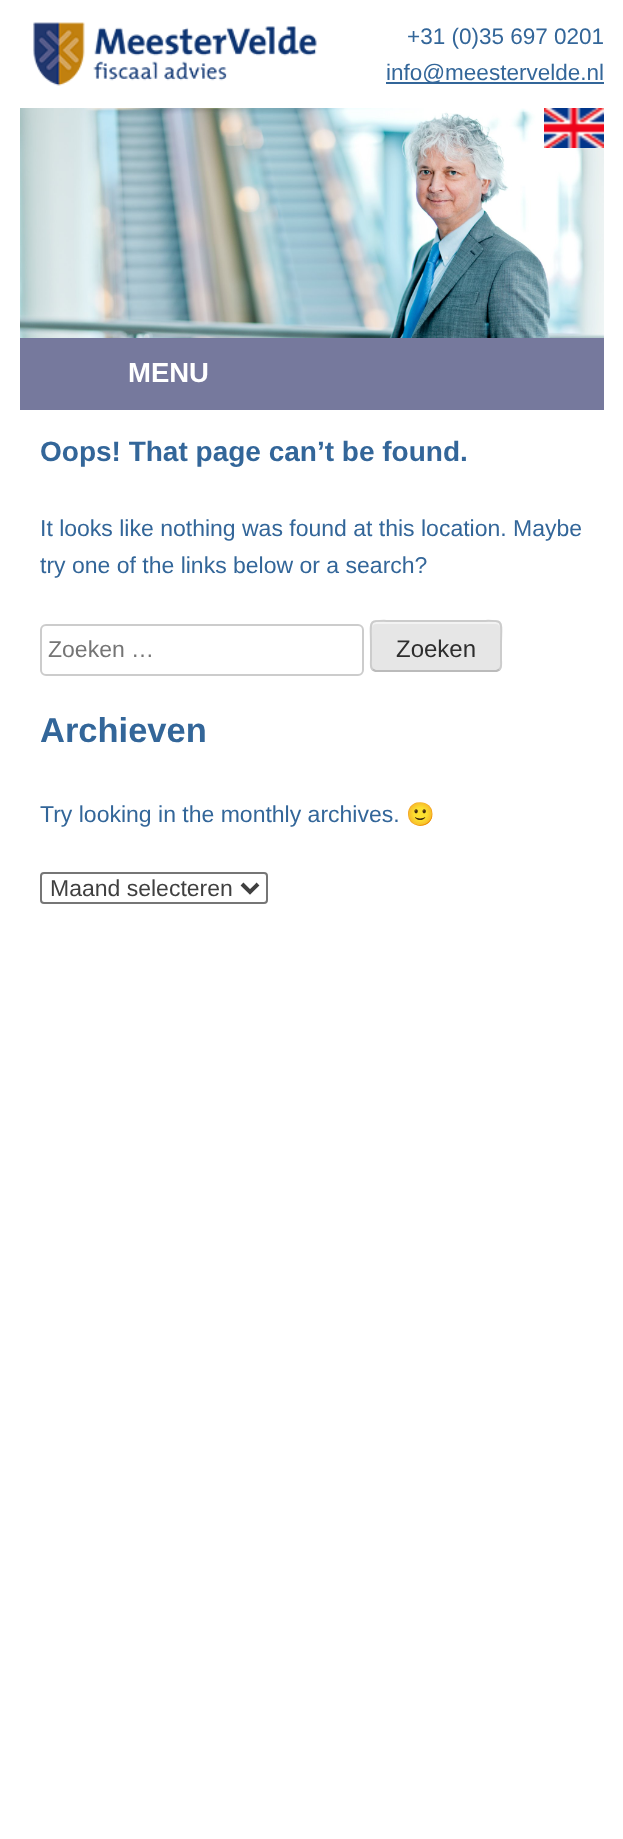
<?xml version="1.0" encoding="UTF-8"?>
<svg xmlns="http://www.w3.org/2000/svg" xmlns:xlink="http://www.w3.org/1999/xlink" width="623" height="1839">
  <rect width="100%" height="100%" fill="#ffffff" />
  <image x="33" y="22" width="284" height="64" xlink:href="image1.png" />
  <rect x="386" y="82" width="218" height="2" fill="#336699" />
  <image x="20" y="108" width="584" height="230" xlink:href="image2.png" />
  <image x="544" y="108" width="60" height="40" xlink:href="image3.png" />
  <rect x="20" y="338" width="584" height="72" fill="#76799d" />
  <rect x="41" y="625" width="322" height="50" rx="5" fill="none" stroke="#cccccc" stroke-width="2" />
  <rect x="370" y="620" width="132" height="52" rx="6" fill="#e6e6e6" />
  <path d="M 376 624 h 120 c 2 0 4 2 4 4 v -2 c 0 -2 -2 -4 -4 -4 h -120 c -2 0 -4 2 -4 4 v 2 c 0 -2 2 -4 4 -4 z" fill="#f3f3f3" />
  <path d="M 499.5 669.5 l -3 1.5 h -121 l -3 -1.5" fill="none" stroke="#bbbbbb" stroke-width="2" />
  <path d="M 372.5 669.5 c -2.5 -2.5 -1.5 -7.5 -1.5 -10 v -13.5 c 0 -29 -5 -25 25 -25 h 80 c 30 0 25 -4 25 25 v 13.5 c 0 2.5 1 7.5 -1.5 10" fill="none" stroke="#cccccc" stroke-width="2" />
  <rect x="41" y="873" width="226" height="30" rx="3" fill="none" stroke="#767676" stroke-width="2" />
  <path d="M 242 884 l 8 8 l 8 -8" fill="none" stroke="#404040" stroke-width="4" />
  <text x="407" y="44" style="font-family: Liberation Sans; font-size: 22.5px; fill: #336699">+31 (0)35 697 0201</text>
  <text x="386" y="80" style="font-family: Liberation Sans; font-size: 22.5px; fill: #336699">info@meestervelde.nl</text>
  <text x="128" y="382" style="font-family: Liberation Sans; font-size: 27.5px; font-weight: bold; fill: #ffffff">MENU</text>
  <text x="40" y="461" style="font-family: Liberation Sans; font-size: 28px; font-weight: bold; fill: #336699">Oops! That page can’t be found.</text>
  <text x="40" y="536" style="font-family: Liberation Sans; font-size: 23px; fill: #336699">It looks like nothing was found at this location. Maybe</text>
  <text x="40" y="573" style="font-family: Liberation Sans; font-size: 23px; fill: #336699">try one of the links below or a search?</text>
  <text x="48" y="657" style="font-family: Liberation Sans; font-size: 23px; fill: #757575">Zoeken …</text>
  <text x="396" y="657" style="font-family: Liberation Sans; font-size: 24px; fill: #2e2e2e">Zoeken</text>
  <text x="40" y="742" style="font-family: Liberation Sans; font-size: 34.5px; font-weight: bold; fill: #336699">Archieven</text>
  <text x="40" y="822" style="font-family: Liberation Sans; font-size: 23px; fill: #336699">Try looking in the monthly archives.</text>
  <text x="406" y="822" style="font-family: Noto Color Emoji; font-size: 23px; fill: #336699">🙂</text>
  <text x="50" y="896" style="font-family: Liberation Sans; font-size: 23px; fill: #404040">Maand selecteren</text>
</svg>
